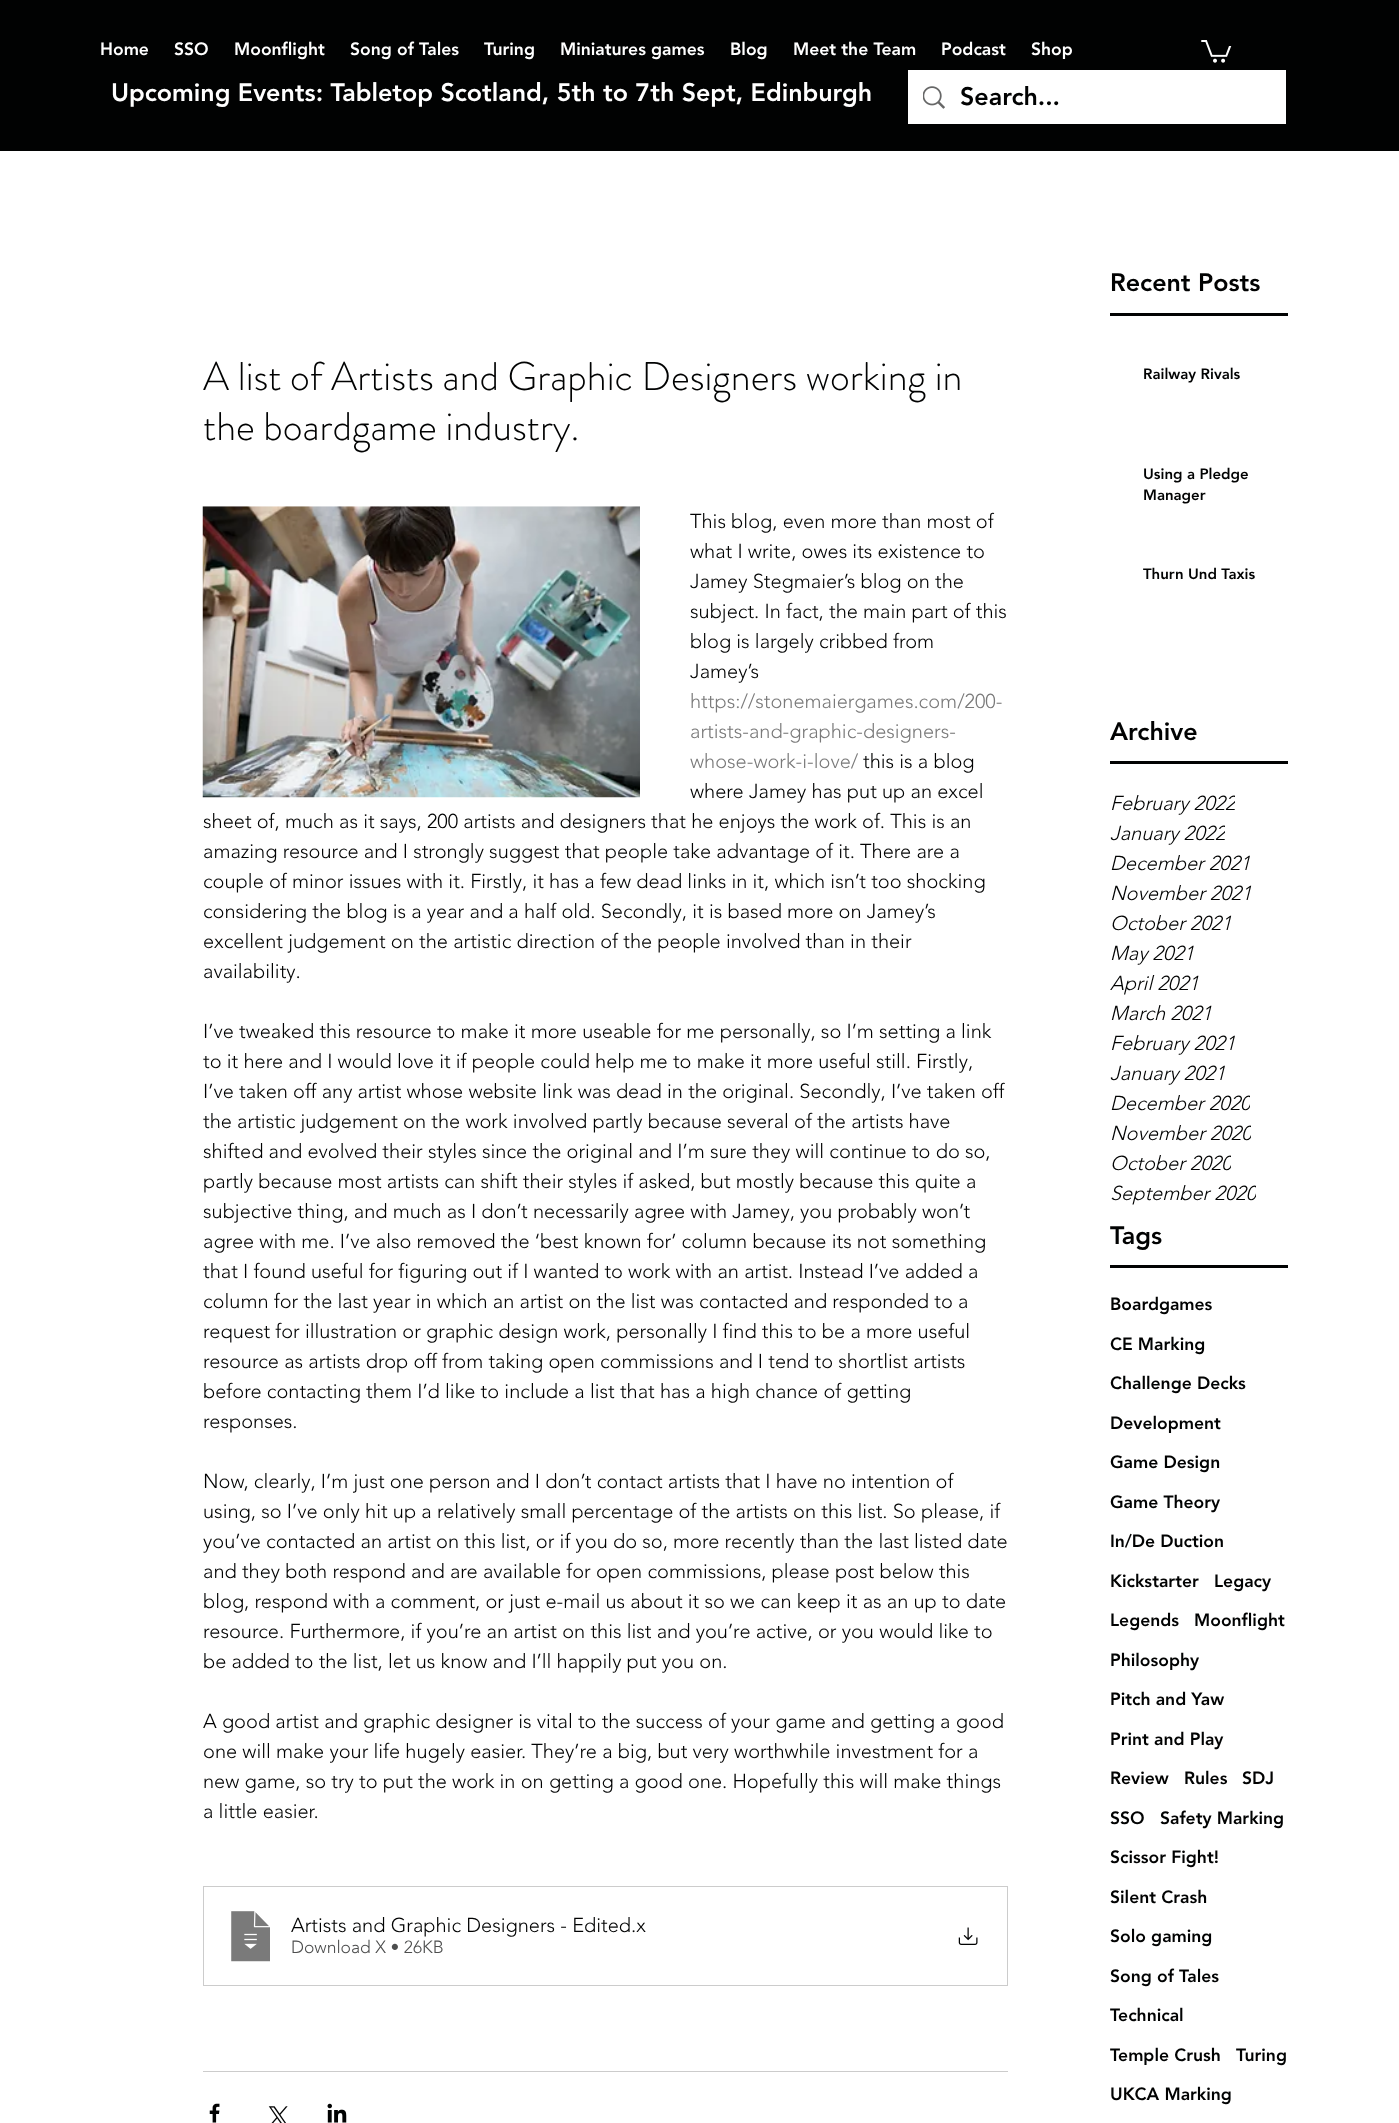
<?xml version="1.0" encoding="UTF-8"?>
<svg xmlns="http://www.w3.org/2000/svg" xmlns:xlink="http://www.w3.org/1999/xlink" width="1399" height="2123">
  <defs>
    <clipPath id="clip1"><rect x="1110" y="789" width="125" height="30" /></clipPath>
    <clipPath id="clip2"><rect x="1110" y="819" width="115" height="30" /></clipPath>
    <clipPath id="clip3"><rect x="1110" y="1089" width="140" height="30" /></clipPath>
    <clipPath id="clip4"><rect x="1110" y="1119" width="141" height="30" /></clipPath>
    <clipPath id="clip5"><rect x="1110" y="1149" width="121" height="30" /></clipPath>
    <clipPath id="clip6"><rect x="1110" y="1179" width="146" height="30" /></clipPath>
  </defs>
  <rect width="100%" height="100%" fill="#ffffff" />
  <rect width="1399" height="151" fill="#010202" />
  <image x="1201" y="40" width="31" height="23" xlink:href="image1.png" />
  <rect x="908" y="70" width="378" height="54" fill="#ffffff" />
  <image x="923" y="86" width="22" height="23" xlink:href="image2.png" />
  <image x="202" y="506" width="438" height="292" xlink:href="image3.png" />
  <rect x="203.5" y="1886.5" width="804" height="99" fill="none" stroke="#cccccc" />
  <image x="230" y="1910" width="40" height="52" xlink:href="image4.png" />
  <image x="958" y="1927" width="20" height="18" xlink:href="image5.png" />
  <rect x="203" y="2071" width="805" height="1" fill="#cccccc" />
  <image x="209" y="2103" width="11" height="20" xlink:href="image6.png" />
  <image x="268" y="2106" width="20" height="17" xlink:href="image7.png" />
  <image x="327" y="2103" width="20" height="20" xlink:href="image8.png" />
  <rect x="1110" y="313" width="178" height="3" fill="#010202" />
  <rect x="1110" y="761" width="178" height="3" fill="#010202" />
  <rect x="1110" y="1265" width="178" height="3" fill="#010202" />
  <text x="100" y="55" style="font-family: 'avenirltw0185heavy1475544'; font-size: 17.5px; font-weight: 900; fill: #ffffff">Home</text>
  <text x="174" y="55" style="font-family: 'avenirltw0185heavy1475544'; font-size: 17.5px; font-weight: 900; fill: #ffffff">SSO</text>
  <text x="234" y="55" style="font-family: 'avenirltw0185heavy1475544'; font-size: 17.5px; font-weight: 900; fill: #ffffff">Moonflight</text>
  <text x="350" y="55" style="font-family: 'avenirltw0185heavy1475544'; font-size: 17.5px; font-weight: 900; fill: #ffffff">Song of Tales</text>
  <text x="484" y="55" style="font-family: 'avenirltw0185heavy1475544'; font-size: 17.5px; font-weight: 900; fill: #ffffff">Turing</text>
  <text x="560" y="55" style="font-family: 'avenirltw0185heavy1475544'; font-size: 17.5px; font-weight: 900; fill: #ffffff">Miniatures games</text>
  <text x="730" y="55" style="font-family: 'avenirltw0185heavy1475544'; font-size: 17.5px; font-weight: 900; fill: #ffffff">Blog</text>
  <text x="793" y="55" style="font-family: 'avenirltw0185heavy1475544'; font-size: 17.5px; font-weight: 900; fill: #ffffff">Meet the Team</text>
  <text x="941" y="55" style="font-family: 'avenirltw0185heavy1475544'; font-size: 17.5px; font-weight: 900; fill: #ffffff">Podcast</text>
  <text x="1031" y="55" style="font-family: 'avenirltw0185heavy1475544'; font-size: 17.5px; font-weight: 900; fill: #ffffff">Shop</text>
  <text x="111" y="101" style="font-family: 'avenirltw0185heavy1475544'; font-size: 25px; font-weight: 900; fill: #ffffff">Upcoming Events: Tabletop Scotland, 5th to 7th Sept, Edinburgh</text>
  <text x="960" y="105" style="font-family: 'avenirltw0185heavy1475544'; font-size: 25px; font-weight: 900; fill: #010202">Search...</text>
  <text x="203" y="390" style="font-family: 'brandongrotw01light'; font-size: 40px; font-weight: 300; fill: #010202">A list of Artists and Graphic Designers working in</text>
  <text x="203" y="440" style="font-family: 'brandongrotw01light'; font-size: 40px; font-weight: 300; fill: #010202">the boardgame industry.</text>
  <text x="690" y="528" style="font-family: 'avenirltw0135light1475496'; font-size: 20px; font-weight: 300; fill: #010202">This blog, even more than most of</text>
  <text x="690" y="558" style="font-family: 'avenirltw0135light1475496'; font-size: 20px; font-weight: 300; fill: #010202">what I write, owes its existence to</text>
  <text x="690" y="588" style="font-family: 'avenirltw0135light1475496'; font-size: 20px; font-weight: 300; fill: #010202">Jamey Stegmaier’s blog on the</text>
  <text x="690" y="618" style="font-family: 'avenirltw0135light1475496'; font-size: 20px; font-weight: 300; fill: #010202">subject. In fact, the main part of this</text>
  <text x="690" y="648" style="font-family: 'avenirltw0135light1475496'; font-size: 20px; font-weight: 300; fill: #010202">blog is largely cribbed from</text>
  <text x="690" y="678" style="font-family: 'avenirltw0135light1475496'; font-size: 20px; font-weight: 300; fill: #010202">Jamey’s</text>
  <text x="690" y="708" style="font-family: 'avenirltw0135light1475496'; font-size: 20px; font-weight: 300; fill: #7a7a7a">https://stonemaiergames.com/200-</text>
  <text x="690" y="738" style="font-family: 'avenirltw0135light1475496'; font-size: 20px; font-weight: 300; fill: #7a7a7a">artists-and-graphic-designers-</text>
  <text x="690" y="768" style="font-family: 'avenirltw0135light1475496'; font-size: 20px; font-weight: 300; fill: #7a7a7a">whose-work-i-love/</text>
  <text x="863" y="768" style="font-family: 'avenirltw0135light1475496'; font-size: 20px; font-weight: 300; fill: #010202">this is a blog</text>
  <text x="690" y="798" style="font-family: 'avenirltw0135light1475496'; font-size: 20px; font-weight: 300; fill: #010202">where Jamey has put up an excel</text>
  <text x="203" y="828" style="font-family: 'avenirltw0135light1475496'; font-size: 20px; font-weight: 300; fill: #010202">sheet of, much as it says, 200 artists and designers that he enjoys the work of. This is an</text>
  <text x="203" y="858" style="font-family: 'avenirltw0135light1475496'; font-size: 20px; font-weight: 300; fill: #010202">amazing resource and I strongly suggest that people take advantage of it. There are a</text>
  <text x="203" y="888" style="font-family: 'avenirltw0135light1475496'; font-size: 20px; font-weight: 300; fill: #010202">couple of minor issues with it. Firstly, it has a few dead links in it, which isn’t too shocking</text>
  <text x="203" y="918" style="font-family: 'avenirltw0135light1475496'; font-size: 20px; font-weight: 300; fill: #010202">considering the blog is a year and a half old. Secondly, it is based more on Jamey’s</text>
  <text x="203" y="948" style="font-family: 'avenirltw0135light1475496'; font-size: 20px; font-weight: 300; fill: #010202">excellent judgement on the artistic direction of the people involved than in their</text>
  <text x="203" y="978" style="font-family: 'avenirltw0135light1475496'; font-size: 20px; font-weight: 300; fill: #010202">availability.</text>
  <text x="203" y="1038" style="font-family: 'avenirltw0135light1475496'; font-size: 20px; font-weight: 300; fill: #010202">I’ve tweaked this resource to make it more useable for me personally, so I’m setting a link</text>
  <text x="203" y="1068" style="font-family: 'avenirltw0135light1475496'; font-size: 20px; font-weight: 300; fill: #010202">to it here and I would love it if people could help me to make it more useful still. Firstly,</text>
  <text x="203" y="1098" style="font-family: 'avenirltw0135light1475496'; font-size: 20px; font-weight: 300; fill: #010202">I’ve taken off any artist whose website link was dead in the original. Secondly, I’ve taken off</text>
  <text x="203" y="1128" style="font-family: 'avenirltw0135light1475496'; font-size: 20px; font-weight: 300; fill: #010202">the artistic judgement on the work involved partly because several of the artists have</text>
  <text x="203" y="1158" style="font-family: 'avenirltw0135light1475496'; font-size: 20px; font-weight: 300; fill: #010202">shifted and evolved their styles since the original and I’m sure they will continue to do so,</text>
  <text x="203" y="1188" style="font-family: 'avenirltw0135light1475496'; font-size: 20px; font-weight: 300; fill: #010202">partly because most artists can shift their styles if asked, but mostly because this quite a</text>
  <text x="203" y="1218" style="font-family: 'avenirltw0135light1475496'; font-size: 20px; font-weight: 300; fill: #010202">subjective thing, and much as I don’t necessarily agree with Jamey, you probably won’t</text>
  <text x="203" y="1248" style="font-family: 'avenirltw0135light1475496'; font-size: 20px; font-weight: 300; fill: #010202">agree with me. I’ve also removed the ‘best known for’ column because its not something</text>
  <text x="203" y="1278" style="font-family: 'avenirltw0135light1475496'; font-size: 20px; font-weight: 300; fill: #010202">that I found useful for figuring out if I wanted to work with an artist. Instead I’ve added a</text>
  <text x="203" y="1308" style="font-family: 'avenirltw0135light1475496'; font-size: 20px; font-weight: 300; fill: #010202">column for the last year in which an artist on the list was contacted and responded to a</text>
  <text x="203" y="1338" style="font-family: 'avenirltw0135light1475496'; font-size: 20px; font-weight: 300; fill: #010202">request for illustration or graphic design work, personally I find this to be a more useful</text>
  <text x="203" y="1368" style="font-family: 'avenirltw0135light1475496'; font-size: 20px; font-weight: 300; fill: #010202">resource as artists drop off from taking open commissions and I tend to shortlist artists</text>
  <text x="203" y="1398" style="font-family: 'avenirltw0135light1475496'; font-size: 20px; font-weight: 300; fill: #010202">before contacting them I’d like to include a list that has a high chance of getting</text>
  <text x="203" y="1428" style="font-family: 'avenirltw0135light1475496'; font-size: 20px; font-weight: 300; fill: #010202">responses.</text>
  <text x="203" y="1488" style="font-family: 'avenirltw0135light1475496'; font-size: 20px; font-weight: 300; fill: #010202">Now, clearly, I’m just one person and I don’t contact artists that I have no intention of</text>
  <text x="203" y="1518" style="font-family: 'avenirltw0135light1475496'; font-size: 20px; font-weight: 300; fill: #010202">using, so I’ve only hit up a relatively small percentage of the artists on this list. So please, if</text>
  <text x="203" y="1548" style="font-family: 'avenirltw0135light1475496'; font-size: 20px; font-weight: 300; fill: #010202">you’ve contacted an artist on this list, or if you do so, more recently than the last listed date</text>
  <text x="203" y="1578" style="font-family: 'avenirltw0135light1475496'; font-size: 20px; font-weight: 300; fill: #010202">and they both respond and are available for open commissions, please post below this</text>
  <text x="203" y="1608" style="font-family: 'avenirltw0135light1475496'; font-size: 20px; font-weight: 300; fill: #010202">blog, respond with a comment, or just e-mail us about it so we can keep it as an up to date</text>
  <text x="203" y="1638" style="font-family: 'avenirltw0135light1475496'; font-size: 20px; font-weight: 300; fill: #010202">resource. Furthermore, if you’re an artist on this list and you’re active, or you would like to</text>
  <text x="203" y="1668" style="font-family: 'avenirltw0135light1475496'; font-size: 20px; font-weight: 300; fill: #010202">be added to the list, let us know and I’ll happily put you on.</text>
  <text x="203" y="1728" style="font-family: 'avenirltw0135light1475496'; font-size: 20px; font-weight: 300; fill: #010202">A good artist and graphic designer is vital to the success of your game and getting a good</text>
  <text x="203" y="1758" style="font-family: 'avenirltw0135light1475496'; font-size: 20px; font-weight: 300; fill: #010202">one will make your life hugely easier. They’re a big, but very worthwhile investment for a</text>
  <text x="203" y="1788" style="font-family: 'avenirltw0135light1475496'; font-size: 20px; font-weight: 300; fill: #010202">new game, so try to put the work in on getting a good one. Hopefully this will make things</text>
  <text x="203" y="1818" style="font-family: 'avenirltw0135light1475496'; font-size: 20px; font-weight: 300; fill: #010202">a little easier.</text>
  <text x="291" y="1932" style="font-family: 'avenirltw0135light1475496'; font-size: 20px; font-weight: 300; fill: #010202">Artists and Graphic Designers - Edited</text>
  <text x="631" y="1932" style="font-family: 'avenirltw0135light1475496'; font-size: 20px; font-weight: 300; fill: #010202">.x</text>
  <text x="291" y="1953" style="font-family: 'avenirltw0135light1475496'; font-size: 17.5px; font-weight: 300; fill: #4d4e4e">Download X • 26KB</text>
  <text x="1110" y="291" style="font-family: 'avenirltw0185heavy1475544'; font-size: 25px; font-weight: 900; fill: #010202">Recent Posts</text>
  <text x="1143" y="379" style="font-family: 'avenirltw0185heavy1475544'; font-size: 15px; font-weight: 900; fill: #010202">Railway Rivals</text>
  <text x="1143" y="479" style="font-family: 'avenirltw0185heavy1475544'; font-size: 15px; font-weight: 900; fill: #010202">Using a Pledge</text>
  <text x="1143" y="500" style="font-family: 'avenirltw0185heavy1475544'; font-size: 15px; font-weight: 900; fill: #010202">Manager</text>
  <text x="1143" y="579" style="font-family: 'avenirltw0185heavy1475544'; font-size: 15px; font-weight: 900; fill: #010202">Thurn Und Taxis</text>
  <text x="1110" y="740" style="font-family: 'avenirltw0185heavy1475544'; font-size: 25px; font-weight: 900; fill: #010202">Archive</text>
  <g clip-path="url(#clip1)">
    <text x="1110" y="810" style="font-family: 'avenirltw0135light1475496'; font-size: 20px; font-weight: 300; font-style: italic; fill: #010202">February 2022</text>
  </g>
  <g clip-path="url(#clip2)">
    <text x="1110" y="840" style="font-family: 'avenirltw0135light1475496'; font-size: 20px; font-weight: 300; font-style: italic; fill: #010202">January 2022</text>
  </g>
  <text x="1110" y="870" style="font-family: 'avenirltw0135light1475496'; font-size: 20px; font-weight: 300; font-style: italic; fill: #010202">December 2021</text>
  <text x="1110" y="900" style="font-family: 'avenirltw0135light1475496'; font-size: 20px; font-weight: 300; font-style: italic; fill: #010202">November 2021</text>
  <text x="1110" y="930" style="font-family: 'avenirltw0135light1475496'; font-size: 20px; font-weight: 300; font-style: italic; fill: #010202">October 2021</text>
  <text x="1110" y="960" style="font-family: 'avenirltw0135light1475496'; font-size: 20px; font-weight: 300; font-style: italic; fill: #010202">May 2021</text>
  <text x="1110" y="990" style="font-family: 'avenirltw0135light1475496'; font-size: 20px; font-weight: 300; font-style: italic; fill: #010202">April 2021</text>
  <text x="1110" y="1020" style="font-family: 'avenirltw0135light1475496'; font-size: 20px; font-weight: 300; font-style: italic; fill: #010202">March 2021</text>
  <text x="1110" y="1050" style="font-family: 'avenirltw0135light1475496'; font-size: 20px; font-weight: 300; font-style: italic; fill: #010202">February 2021</text>
  <text x="1110" y="1080" style="font-family: 'avenirltw0135light1475496'; font-size: 20px; font-weight: 300; font-style: italic; fill: #010202">January 2021</text>
  <g clip-path="url(#clip3)">
    <text x="1110" y="1110" style="font-family: 'avenirltw0135light1475496'; font-size: 20px; font-weight: 300; font-style: italic; fill: #010202">December 2020</text>
  </g>
  <g clip-path="url(#clip4)">
    <text x="1110" y="1140" style="font-family: 'avenirltw0135light1475496'; font-size: 20px; font-weight: 300; font-style: italic; fill: #010202">November 2020</text>
  </g>
  <g clip-path="url(#clip5)">
    <text x="1110" y="1170" style="font-family: 'avenirltw0135light1475496'; font-size: 20px; font-weight: 300; font-style: italic; fill: #010202">October 2020</text>
  </g>
  <g clip-path="url(#clip6)">
    <text x="1110" y="1200" style="font-family: 'avenirltw0135light1475496'; font-size: 20px; font-weight: 300; font-style: italic; fill: #010202">September 2020</text>
  </g>
  <text x="1110" y="1244" style="font-family: 'avenirltw0185heavy1475544'; font-size: 25px; font-weight: 900; fill: #010202">Tags</text>
  <text x="1110" y="1310" style="font-family: 'avenirltw0185heavy1475544'; font-size: 17.5px; font-weight: 900; fill: #010202">Boardgames</text>
  <text x="1110" y="1350" style="font-family: 'avenirltw0185heavy1475544'; font-size: 17.5px; font-weight: 900; fill: #010202">CE Marking</text>
  <text x="1110" y="1389" style="font-family: 'avenirltw0185heavy1475544'; font-size: 17.5px; font-weight: 900; fill: #010202">Challenge Decks</text>
  <text x="1110" y="1429" style="font-family: 'avenirltw0185heavy1475544'; font-size: 17.5px; font-weight: 900; fill: #010202">Development</text>
  <text x="1110" y="1468" style="font-family: 'avenirltw0185heavy1475544'; font-size: 17.5px; font-weight: 900; fill: #010202">Game Design</text>
  <text x="1110" y="1508" style="font-family: 'avenirltw0185heavy1475544'; font-size: 17.5px; font-weight: 900; fill: #010202">Game Theory</text>
  <text x="1110" y="1547" style="font-family: 'avenirltw0185heavy1475544'; font-size: 17.5px; font-weight: 900; fill: #010202">In/De Duction</text>
  <text x="1110" y="1587" style="font-family: 'avenirltw0185heavy1475544'; font-size: 17.5px; font-weight: 900; fill: #010202">Kickstarter</text>
  <text x="1214" y="1587" style="font-family: 'avenirltw0185heavy1475544'; font-size: 17.5px; font-weight: 900; fill: #010202">Legacy</text>
  <text x="1110" y="1626" style="font-family: 'avenirltw0185heavy1475544'; font-size: 17.5px; font-weight: 900; fill: #010202">Legends</text>
  <text x="1194" y="1626" style="font-family: 'avenirltw0185heavy1475544'; font-size: 17.5px; font-weight: 900; fill: #010202">Moonflight</text>
  <text x="1110" y="1666" style="font-family: 'avenirltw0185heavy1475544'; font-size: 17.5px; font-weight: 900; fill: #010202">Philosophy</text>
  <text x="1110" y="1705" style="font-family: 'avenirltw0185heavy1475544'; font-size: 17.5px; font-weight: 900; fill: #010202">Pitch and Yaw</text>
  <text x="1110" y="1745" style="font-family: 'avenirltw0185heavy1475544'; font-size: 17.5px; font-weight: 900; fill: #010202">Print and Play</text>
  <text x="1110" y="1784" style="font-family: 'avenirltw0185heavy1475544'; font-size: 17.5px; font-weight: 900; fill: #010202">Review</text>
  <text x="1184" y="1784" style="font-family: 'avenirltw0185heavy1475544'; font-size: 17.5px; font-weight: 900; fill: #010202">Rules</text>
  <text x="1242" y="1784" style="font-family: 'avenirltw0185heavy1475544'; font-size: 17.5px; font-weight: 900; fill: #010202">SDJ</text>
  <text x="1110" y="1824" style="font-family: 'avenirltw0185heavy1475544'; font-size: 17.5px; font-weight: 900; fill: #010202">SSO</text>
  <text x="1160" y="1824" style="font-family: 'avenirltw0185heavy1475544'; font-size: 17.5px; font-weight: 900; fill: #010202">Safety Marking</text>
  <text x="1110" y="1863" style="font-family: 'avenirltw0185heavy1475544'; font-size: 17.5px; font-weight: 900; fill: #010202">Scissor Fight!</text>
  <text x="1110" y="1903" style="font-family: 'avenirltw0185heavy1475544'; font-size: 17.5px; font-weight: 900; fill: #010202">Silent Crash</text>
  <text x="1110" y="1942" style="font-family: 'avenirltw0185heavy1475544'; font-size: 17.5px; font-weight: 900; fill: #010202">Solo gaming</text>
  <text x="1110" y="1982" style="font-family: 'avenirltw0185heavy1475544'; font-size: 17.5px; font-weight: 900; fill: #010202">Song of Tales</text>
  <text x="1110" y="2021" style="font-family: 'avenirltw0185heavy1475544'; font-size: 17.5px; font-weight: 900; fill: #010202">Technical</text>
  <text x="1110" y="2061" style="font-family: 'avenirltw0185heavy1475544'; font-size: 17.5px; font-weight: 900; fill: #010202">Temple Crush</text>
  <text x="1236" y="2061" style="font-family: 'avenirltw0185heavy1475544'; font-size: 17.5px; font-weight: 900; fill: #010202">Turing</text>
  <text x="1110" y="2100" style="font-family: 'avenirltw0185heavy1475544'; font-size: 17.5px; font-weight: 900; fill: #010202">UKCA Marking</text>
</svg>
